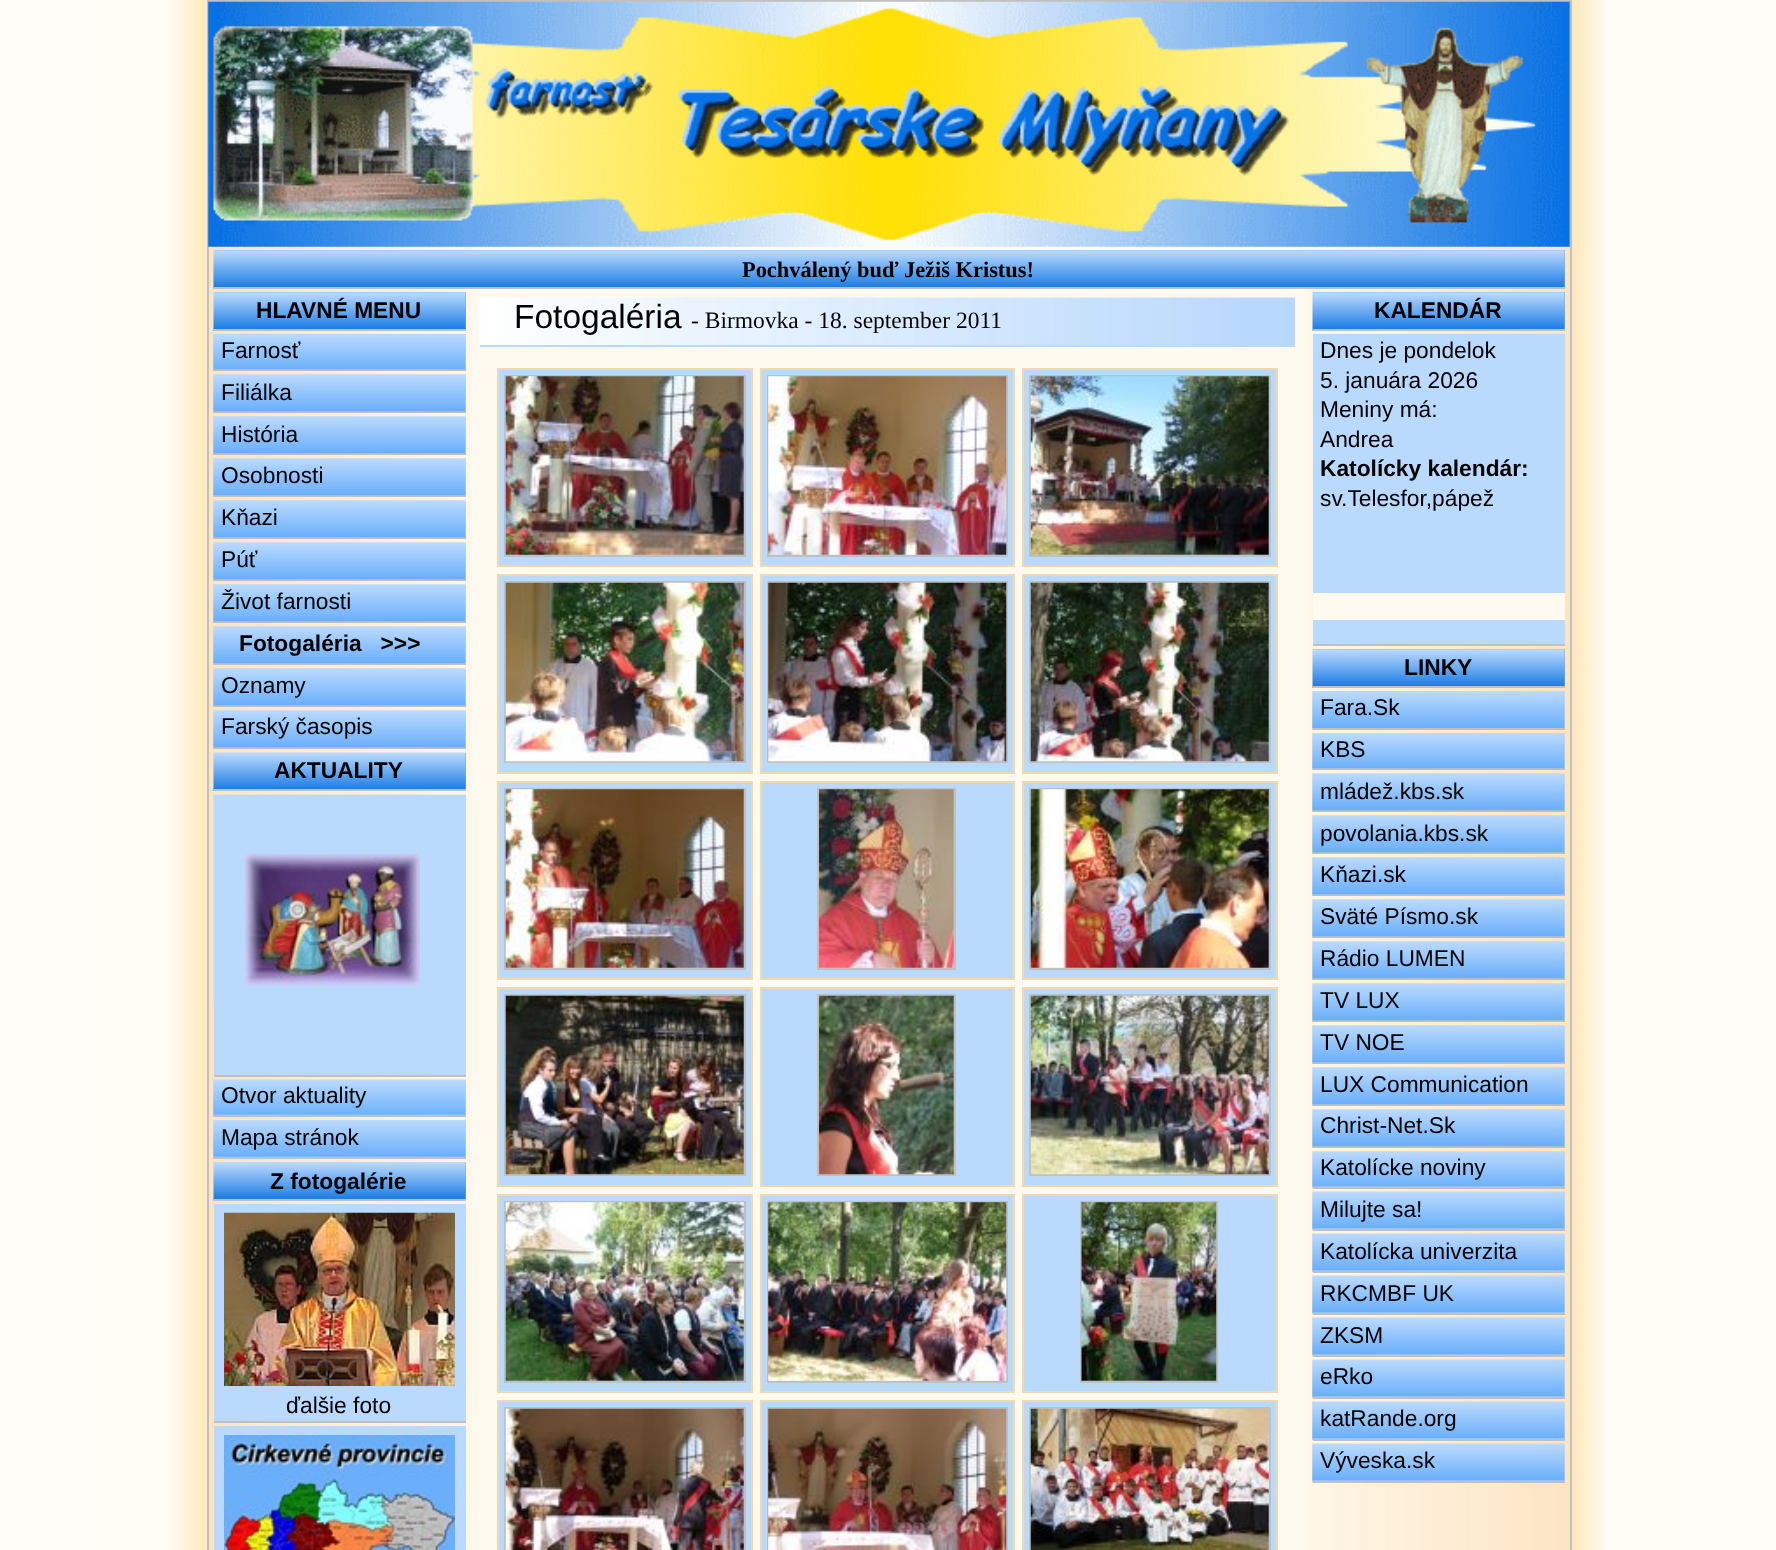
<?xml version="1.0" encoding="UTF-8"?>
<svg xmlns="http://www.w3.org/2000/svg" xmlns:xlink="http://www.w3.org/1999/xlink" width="1776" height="1550">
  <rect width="100%" height="100%" fill="#ffffff" />
  <image x="0" y="0" width="1776" height="1550" xlink:href="image1.png" />
  <image x="209" y="2" width="1361" height="1548" xlink:href="image2.png" />
  <rect x="208" y="1" width="1363" height="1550" fill="none" stroke="#c0c0c0" stroke-width="2" />
  <image x="208" y="1" width="1362" height="246" xlink:href="image3.png" />
  <rect x="214" y="250" width="1351" height="37" fill="#6baffa" />
  <image x="213" y="250" width="1352" height="39" xlink:href="image4.png" />
  <rect x="214" y="287" width="1351" height="2" fill="#c0c0c0" />
  <rect x="214" y="292" width="252" height="37" fill="#6baffa" />
  <image x="213" y="292" width="253" height="39" xlink:href="image5.png" />
  <rect x="214" y="329" width="252" height="2" fill="#c0c0c0" />
  <image x="213" y="334" width="1" height="37" xlink:href="image6.png" />
  <rect x="214" y="369" width="252" height="2" fill="#c0c0c0" />
  <rect x="214" y="334" width="252" height="35" fill="#b9d9fd" />
  <image x="213" y="334" width="253" height="36" xlink:href="image7.png" />
  <image x="213" y="374" width="253" height="39" xlink:href="image8.png" />
  <rect x="214" y="411" width="252" height="2" fill="#c0c0c0" />
  <rect x="465" y="375" width="1" height="36" fill="#b9d9fd" />
  <image x="213" y="374" width="253" height="38" xlink:href="image9.png" />
  <image x="213" y="416" width="253" height="39" xlink:href="image8.png" />
  <rect x="214" y="453" width="252" height="2" fill="#c0c0c0" />
  <rect x="465" y="417" width="1" height="36" fill="#b9d9fd" />
  <image x="213" y="416" width="253" height="38" xlink:href="image9.png" />
  <image x="213" y="458" width="253" height="39" xlink:href="image10.png" />
  <rect x="214" y="495" width="252" height="2" fill="#c0c0c0" />
  <rect x="465" y="459" width="1" height="36" fill="#b9d9fd" />
  <image x="213" y="458" width="253" height="38" xlink:href="image11.png" />
  <image x="213" y="500" width="253" height="39" xlink:href="image10.png" />
  <rect x="214" y="537" width="252" height="2" fill="#c0c0c0" />
  <rect x="465" y="501" width="1" height="36" fill="#b9d9fd" />
  <image x="213" y="500" width="253" height="38" xlink:href="image11.png" />
  <image x="213" y="542" width="253" height="39" xlink:href="image8.png" />
  <rect x="214" y="579" width="252" height="2" fill="#c0c0c0" />
  <rect x="465" y="543" width="1" height="36" fill="#b9d9fd" />
  <image x="213" y="542" width="253" height="38" xlink:href="image9.png" />
  <image x="213" y="584" width="253" height="39" xlink:href="image10.png" />
  <rect x="214" y="621" width="252" height="2" fill="#c0c0c0" />
  <rect x="465" y="585" width="1" height="36" fill="#b9d9fd" />
  <image x="213" y="584" width="253" height="38" xlink:href="image11.png" />
  <image x="213" y="626" width="253" height="39" xlink:href="image10.png" />
  <rect x="214" y="663" width="252" height="2" fill="#c0c0c0" />
  <rect x="465" y="627" width="1" height="36" fill="#b9d9fd" />
  <image x="213" y="626" width="253" height="38" xlink:href="image11.png" />
  <image x="213" y="668" width="253" height="39" xlink:href="image12.png" />
  <rect x="214" y="705" width="252" height="2" fill="#c0c0c0" />
  <rect x="465" y="669" width="1" height="36" fill="#b9d9fd" />
  <image x="213" y="668" width="253" height="38" xlink:href="image13.png" />
  <image x="213" y="710" width="253" height="39" xlink:href="image14.png" />
  <rect x="214" y="747" width="252" height="2" fill="#c0c0c0" />
  <rect x="465" y="711" width="1" height="36" fill="#b9d9fd" />
  <image x="213" y="710" width="253" height="38" xlink:href="image15.png" />
  <rect x="465" y="753" width="1" height="36" fill="#6baffa" />
  <image x="213" y="752" width="253" height="39" xlink:href="image16.png" />
  <rect x="214" y="789" width="252" height="2" fill="#c0c0c0" />
  <rect x="214" y="795" width="252" height="280" fill="#b9d9fd" />
  <rect x="214" y="1075" width="252" height="2" fill="#c0c0c0" />
  <image x="213" y="794" width="252" height="280" xlink:href="image17.png" />
  <image x="213" y="1079" width="253" height="38" xlink:href="image18.png" />
  <rect x="214" y="1115" width="252" height="2" fill="#c0c0c0" />
  <rect x="214" y="1080" width="252" height="35" fill="#b9d9fd" />
  <image x="213" y="1079" width="253" height="36" xlink:href="image19.png" />
  <image x="213" y="1120" width="1" height="39" xlink:href="image20.png" />
  <rect x="214" y="1157" width="252" height="2" fill="#c0c0c0" />
  <rect x="214" y="1120" width="252" height="37" fill="#b9d9fd" />
  <image x="213" y="1120" width="253" height="37" xlink:href="image21.png" />
  <rect x="465" y="1162" width="1" height="37" fill="#6baffa" />
  <image x="213" y="1162" width="253" height="39" xlink:href="image22.png" />
  <rect x="214" y="1199" width="252" height="2" fill="#c0c0c0" />
  <rect x="214" y="1204" width="252" height="217" fill="#b9d9fd" />
  <rect x="214" y="1421" width="252" height="2" fill="#c0c0c0" />
  <image x="224" y="1212" width="231" height="174" xlink:href="image23.png" />
  <rect x="214" y="1426" width="252" height="124" fill="#b9d9fd" />
  <image x="224" y="1435" width="231" height="115" xlink:href="image24.png" />
  <image x="479" y="297" width="816" height="50" xlink:href="image25.png" />
  <rect x="480" y="345" width="815" height="2" fill="#b9d9fd" />
  <rect x="498" y="369" width="254" height="197" fill="#b9d9fd" stroke="#f3d8a9" stroke-width="2" />
  <rect x="505" y="376" width="240" height="180" fill="none" stroke="#c0c0c0" stroke-width="2" />
  <image x="505" y="376" width="239" height="179" xlink:href="image26.png" />
  <rect x="761" y="369" width="253" height="197" fill="#b9d9fd" stroke="#f3d8a9" stroke-width="2" />
  <rect x="768" y="376" width="239" height="180" fill="none" stroke="#c0c0c0" stroke-width="2" />
  <image x="768" y="376" width="239" height="179" xlink:href="image27.png" />
  <rect x="1023" y="369" width="254" height="197" fill="#b9d9fd" stroke="#f3d8a9" stroke-width="2" />
  <rect x="1030" y="376" width="240" height="180" fill="none" stroke="#c0c0c0" stroke-width="2" />
  <image x="1030" y="376" width="239" height="179" xlink:href="image28.png" />
  <rect x="498" y="575" width="254" height="198" fill="#b9d9fd" stroke="#f3d8a9" stroke-width="2" />
  <rect x="505" y="582" width="240" height="180" fill="none" stroke="#c0c0c0" stroke-width="2" />
  <image x="505" y="582" width="239" height="180" xlink:href="image29.png" />
  <rect x="761" y="575" width="253" height="198" fill="#b9d9fd" stroke="#f3d8a9" stroke-width="2" />
  <rect x="768" y="582" width="239" height="180" fill="none" stroke="#c0c0c0" stroke-width="2" />
  <image x="768" y="582" width="239" height="180" xlink:href="image30.png" />
  <rect x="1023" y="575" width="254" height="198" fill="#b9d9fd" stroke="#f3d8a9" stroke-width="2" />
  <rect x="1030" y="582" width="240" height="180" fill="none" stroke="#c0c0c0" stroke-width="2" />
  <image x="1030" y="582" width="239" height="180" xlink:href="image31.png" />
  <rect x="498" y="782" width="254" height="197" fill="#b9d9fd" stroke="#f3d8a9" stroke-width="2" />
  <rect x="505" y="789" width="240" height="180" fill="none" stroke="#c0c0c0" stroke-width="2" />
  <image x="505" y="789" width="239" height="179" xlink:href="image32.png" />
  <rect x="761" y="782" width="253" height="197" fill="#b9d9fd" stroke="#f3d8a9" stroke-width="2" />
  <rect x="818" y="789" width="137" height="180" fill="none" stroke="#c0c0c0" stroke-width="2" />
  <image x="819" y="789" width="135" height="179" xlink:href="image33.png" />
  <rect x="1023" y="782" width="254" height="197" fill="#b9d9fd" stroke="#f3d8a9" stroke-width="2" />
  <rect x="1030" y="789" width="240" height="180" fill="none" stroke="#c0c0c0" stroke-width="2" />
  <image x="1030" y="789" width="239" height="179" xlink:href="image34.png" />
  <rect x="498" y="988" width="254" height="198" fill="#b9d9fd" stroke="#f3d8a9" stroke-width="2" />
  <rect x="505" y="995" width="240" height="180" fill="none" stroke="#c0c0c0" stroke-width="2" />
  <image x="505" y="995" width="239" height="180" xlink:href="image35.png" />
  <rect x="761" y="988" width="253" height="198" fill="#b9d9fd" stroke="#f3d8a9" stroke-width="2" />
  <rect x="818" y="995" width="137" height="180" fill="none" stroke="#c0c0c0" stroke-width="2" />
  <image x="819" y="995" width="135" height="180" xlink:href="image36.png" />
  <rect x="1023" y="988" width="254" height="198" fill="#b9d9fd" stroke="#f3d8a9" stroke-width="2" />
  <rect x="1030" y="995" width="240" height="180" fill="none" stroke="#c0c0c0" stroke-width="2" />
  <image x="1030" y="995" width="239" height="180" xlink:href="image37.png" />
  <rect x="498" y="1195" width="254" height="197" fill="#b9d9fd" stroke="#f3d8a9" stroke-width="2" />
  <rect x="505" y="1202" width="240" height="180" fill="none" stroke="#c0c0c0" stroke-width="2" />
  <image x="505" y="1202" width="239" height="179" xlink:href="image38.png" />
  <rect x="761" y="1195" width="253" height="197" fill="#b9d9fd" stroke="#f3d8a9" stroke-width="2" />
  <rect x="768" y="1202" width="239" height="180" fill="none" stroke="#c0c0c0" stroke-width="2" />
  <image x="768" y="1202" width="239" height="179" xlink:href="image39.png" />
  <rect x="1023" y="1195" width="254" height="197" fill="#b9d9fd" stroke="#f3d8a9" stroke-width="2" />
  <rect x="1081" y="1202" width="136" height="180" fill="none" stroke="#c0c0c0" stroke-width="2" />
  <image x="1081" y="1202" width="136" height="179" xlink:href="image40.png" />
  <rect x="498" y="1401" width="254" height="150" fill="#b9d9fd" stroke="#f3d8a9" stroke-width="2" />
  <rect x="505" y="1408" width="240" height="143" fill="none" stroke="#c0c0c0" stroke-width="2" />
  <image x="505" y="1408" width="239" height="142" xlink:href="image41.png" />
  <rect x="761" y="1401" width="253" height="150" fill="#b9d9fd" stroke="#f3d8a9" stroke-width="2" />
  <rect x="768" y="1408" width="239" height="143" fill="none" stroke="#c0c0c0" stroke-width="2" />
  <image x="768" y="1408" width="239" height="142" xlink:href="image42.png" />
  <rect x="1023" y="1401" width="254" height="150" fill="#b9d9fd" stroke="#f3d8a9" stroke-width="2" />
  <rect x="1030" y="1408" width="240" height="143" fill="none" stroke="#c0c0c0" stroke-width="2" />
  <image x="1030" y="1408" width="239" height="142" xlink:href="image43.png" />
  <rect x="1313" y="292" width="252" height="37" fill="#6baffa" />
  <image x="1312" y="292" width="253" height="39" xlink:href="image44.png" />
  <rect x="1313" y="329" width="252" height="2" fill="#c0c0c0" />
  <rect x="1313" y="334" width="252" height="310" fill="#b9d9fd" />
  <rect x="1313" y="644" width="252" height="2" fill="#c0c0c0" />
  <rect x="1313" y="593" width="252" height="27" fill="#fffaf0" />
  <rect x="1313" y="649" width="252" height="37" fill="#6baffa" />
  <image x="1312" y="649" width="253" height="39" xlink:href="image45.png" />
  <rect x="1313" y="686" width="252" height="2" fill="#c0c0c0" />
  <image x="1312" y="691" width="1" height="39" xlink:href="image46.png" />
  <rect x="1313" y="728" width="252" height="2" fill="#c0c0c0" />
  <rect x="1313" y="691" width="252" height="37" fill="#b9d9fd" />
  <image x="1312" y="691" width="253" height="37" xlink:href="image47.png" />
  <image x="1312" y="733" width="1" height="37" xlink:href="image48.png" />
  <rect x="1313" y="768" width="252" height="2" fill="#c0c0c0" />
  <rect x="1313" y="733" width="252" height="35" fill="#b9d9fd" />
  <image x="1312" y="733" width="253" height="36" xlink:href="image49.png" />
  <image x="1312" y="773" width="253" height="39" xlink:href="image50.png" />
  <rect x="1313" y="810" width="252" height="2" fill="#c0c0c0" />
  <rect x="1564" y="774" width="1" height="36" fill="#b9d9fd" />
  <image x="1312" y="773" width="253" height="38" xlink:href="image51.png" />
  <image x="1312" y="815" width="253" height="39" xlink:href="image52.png" />
  <rect x="1313" y="852" width="252" height="2" fill="#c0c0c0" />
  <rect x="1564" y="816" width="1" height="36" fill="#b9d9fd" />
  <image x="1312" y="815" width="253" height="38" xlink:href="image53.png" />
  <image x="1312" y="857" width="253" height="39" xlink:href="image50.png" />
  <rect x="1313" y="894" width="252" height="2" fill="#c0c0c0" />
  <rect x="1564" y="858" width="1" height="36" fill="#b9d9fd" />
  <image x="1312" y="857" width="253" height="38" xlink:href="image51.png" />
  <image x="1312" y="899" width="253" height="39" xlink:href="image54.png" />
  <rect x="1313" y="936" width="252" height="2" fill="#c0c0c0" />
  <rect x="1564" y="900" width="1" height="36" fill="#b9d9fd" />
  <image x="1312" y="899" width="253" height="38" xlink:href="image55.png" />
  <image x="1312" y="941" width="253" height="39" xlink:href="image52.png" />
  <rect x="1313" y="978" width="252" height="2" fill="#c0c0c0" />
  <rect x="1564" y="942" width="1" height="36" fill="#b9d9fd" />
  <image x="1312" y="941" width="253" height="38" xlink:href="image53.png" />
  <image x="1312" y="983" width="253" height="39" xlink:href="image50.png" />
  <rect x="1313" y="1020" width="252" height="2" fill="#c0c0c0" />
  <rect x="1564" y="984" width="1" height="36" fill="#b9d9fd" />
  <image x="1312" y="983" width="253" height="38" xlink:href="image51.png" />
  <image x="1312" y="1025" width="253" height="39" xlink:href="image52.png" />
  <rect x="1313" y="1062" width="252" height="2" fill="#c0c0c0" />
  <rect x="1564" y="1026" width="1" height="36" fill="#b9d9fd" />
  <image x="1312" y="1025" width="253" height="38" xlink:href="image53.png" />
  <image x="1312" y="1067" width="253" height="39" xlink:href="image52.png" />
  <rect x="1313" y="1104" width="252" height="2" fill="#c0c0c0" />
  <rect x="1564" y="1068" width="1" height="36" fill="#b9d9fd" />
  <image x="1312" y="1067" width="253" height="38" xlink:href="image53.png" />
  <image x="1312" y="1109" width="253" height="39" xlink:href="image50.png" />
  <rect x="1313" y="1146" width="252" height="2" fill="#c0c0c0" />
  <rect x="1564" y="1110" width="1" height="36" fill="#b9d9fd" />
  <image x="1312" y="1109" width="253" height="38" xlink:href="image51.png" />
  <image x="1312" y="1151" width="253" height="38" xlink:href="image56.png" />
  <rect x="1313" y="1187" width="252" height="2" fill="#c0c0c0" />
  <rect x="1313" y="1152" width="252" height="35" fill="#b9d9fd" />
  <image x="1312" y="1151" width="253" height="36" xlink:href="image57.png" />
  <image x="1312" y="1191" width="253" height="40" xlink:href="image58.png" />
  <rect x="1313" y="1229" width="252" height="2" fill="#c0c0c0" />
  <rect x="1313" y="1192" width="252" height="37" fill="#b9d9fd" />
  <image x="1312" y="1191" width="253" height="38" xlink:href="image59.png" />
  <image x="1312" y="1233" width="253" height="40" xlink:href="image60.png" />
  <rect x="1313" y="1271" width="252" height="2" fill="#c0c0c0" />
  <rect x="1313" y="1234" width="252" height="37" fill="#b9d9fd" />
  <image x="1312" y="1233" width="253" height="38" xlink:href="image61.png" />
  <image x="1312" y="1275" width="253" height="40" xlink:href="image62.png" />
  <rect x="1313" y="1313" width="252" height="2" fill="#c0c0c0" />
  <rect x="1313" y="1276" width="252" height="37" fill="#b9d9fd" />
  <image x="1312" y="1275" width="253" height="38" xlink:href="image63.png" />
  <image x="1312" y="1317" width="253" height="40" xlink:href="image62.png" />
  <rect x="1313" y="1355" width="252" height="2" fill="#c0c0c0" />
  <rect x="1313" y="1318" width="252" height="37" fill="#b9d9fd" />
  <image x="1312" y="1317" width="253" height="38" xlink:href="image63.png" />
  <image x="1312" y="1359" width="253" height="40" xlink:href="image62.png" />
  <rect x="1313" y="1397" width="252" height="2" fill="#c0c0c0" />
  <rect x="1313" y="1360" width="252" height="37" fill="#b9d9fd" />
  <image x="1312" y="1359" width="253" height="38" xlink:href="image63.png" />
  <image x="1312" y="1401" width="253" height="40" xlink:href="image62.png" />
  <rect x="1313" y="1439" width="252" height="2" fill="#c0c0c0" />
  <rect x="1313" y="1402" width="252" height="37" fill="#b9d9fd" />
  <image x="1312" y="1401" width="253" height="38" xlink:href="image63.png" />
  <image x="1312" y="1443" width="253" height="40" xlink:href="image62.png" />
  <rect x="1313" y="1481" width="252" height="2" fill="#c0c0c0" />
  <rect x="1313" y="1444" width="252" height="37" fill="#b9d9fd" />
  <image x="1312" y="1443" width="253" height="38" xlink:href="image63.png" />
  <text x="742" y="277" style="font-family: Liberation Serif; font-size: 22.4px; font-weight: bold; fill: #000000">Pochválený buď Ježiš Kristus!</text>
  <text x="256" y="318" style="font-family: Liberation Sans; font-size: 22.75px; font-weight: bold; fill: #000000">HLAVNÉ MENU</text>
  <text x="221" y="358" style="font-family: Liberation Sans; font-size: 22.75px; fill: #000000">Farnosť</text>
  <text x="221" y="400" style="font-family: Liberation Sans; font-size: 22.75px; fill: #000000">Filiálka</text>
  <text x="221" y="442" style="font-family: Liberation Sans; font-size: 22.75px; fill: #000000">História</text>
  <text x="221" y="483" style="font-family: Liberation Sans; font-size: 22.75px; fill: #000000">Osobnosti</text>
  <text x="221" y="525" style="font-family: Liberation Sans; font-size: 22.75px; fill: #000000">Kňazi</text>
  <text x="221" y="567" style="font-family: Liberation Sans; font-size: 22.75px; fill: #000000">Púť</text>
  <text x="221" y="609" style="font-family: Liberation Sans; font-size: 22.75px; fill: #000000">Život farnosti</text>
  <text x="239" y="651" style="font-family: Liberation Sans; font-size: 22.75px; font-weight: bold; fill: #000000" xml:space="preserve">Fotogaléria   &gt;&gt;&gt;</text>
  <text x="221" y="693" style="font-family: Liberation Sans; font-size: 22.75px; fill: #000000">Oznamy</text>
  <text x="221" y="734" style="font-family: Liberation Sans; font-size: 22.75px; fill: #000000">Farský časopis</text>
  <text x="274" y="778" style="font-family: Liberation Sans; font-size: 22.75px; font-weight: bold; fill: #000000">AKTUALITY</text>
  <text x="221" y="1103" style="font-family: Liberation Sans; font-size: 22.75px; fill: #000000">Otvor aktuality</text>
  <text x="221" y="1145" style="font-family: Liberation Sans; font-size: 22.75px; fill: #000000">Mapa stránok</text>
  <text x="270" y="1189" style="font-family: Liberation Sans; font-size: 22.75px; font-weight: bold; fill: #000000">Z fotogalérie</text>
  <text x="286" y="1413" style="font-family: Liberation Sans; font-size: 22.75px; fill: #000000">ďalšie foto</text>
  <text x="514" y="328" style="font-family: Liberation Sans; font-size: 33.5px; fill: #000000">Fotogaléria</text>
  <text x="691" y="328" style="font-family: Liberation Serif; font-size: 23.5px; fill: #000000">- Birmovka - 18. september 2011</text>
  <text x="1374" y="318" style="font-family: Liberation Sans; font-size: 22.75px; font-weight: bold; fill: #000000">KALENDÁR</text>
  <text x="1320" y="358" style="font-family: Liberation Sans; font-size: 22.75px; fill: #000000">Dnes je pondelok</text>
  <text x="1320" y="388" style="font-family: Liberation Sans; font-size: 22.75px; fill: #000000">5. januára 2026</text>
  <text x="1320" y="417" style="font-family: Liberation Sans; font-size: 22.75px; fill: #000000">Meniny má:</text>
  <text x="1320" y="447" style="font-family: Liberation Sans; font-size: 22.75px; fill: #000000">Andrea</text>
  <text x="1320" y="476" style="font-family: Liberation Sans; font-size: 22.75px; font-weight: bold; fill: #000000">Katolícky kalendár:</text>
  <text x="1320" y="506" style="font-family: Liberation Sans; font-size: 22.75px; fill: #000000">sv.Telesfor,pápež</text>
  <text x="1404" y="675" style="font-family: Liberation Sans; font-size: 22.75px; font-weight: bold; fill: #000000">LINKY</text>
  <text x="1320" y="715" style="font-family: Liberation Sans; font-size: 22.75px; fill: #000000">Fara.Sk</text>
  <text x="1320" y="757" style="font-family: Liberation Sans; font-size: 22.75px; fill: #000000">KBS</text>
  <text x="1320" y="799" style="font-family: Liberation Sans; font-size: 22.75px; fill: #000000">mládež.kbs.sk</text>
  <text x="1320" y="841" style="font-family: Liberation Sans; font-size: 22.75px; fill: #000000">povolania.kbs.sk</text>
  <text x="1320" y="882" style="font-family: Liberation Sans; font-size: 22.75px; fill: #000000">Kňazi.sk</text>
  <text x="1320" y="924" style="font-family: Liberation Sans; font-size: 22.75px; fill: #000000">Sväté Písmo.sk</text>
  <text x="1320" y="966" style="font-family: Liberation Sans; font-size: 22.75px; fill: #000000">Rádio LUMEN</text>
  <text x="1320" y="1008" style="font-family: Liberation Sans; font-size: 22.75px; fill: #000000">TV LUX</text>
  <text x="1320" y="1050" style="font-family: Liberation Sans; font-size: 22.75px; fill: #000000">TV NOE</text>
  <text x="1320" y="1092" style="font-family: Liberation Sans; font-size: 22.75px; fill: #000000">LUX Communication</text>
  <text x="1320" y="1133" style="font-family: Liberation Sans; font-size: 22.75px; fill: #000000">Christ-Net.Sk</text>
  <text x="1320" y="1175" style="font-family: Liberation Sans; font-size: 22.75px; fill: #000000">Katolícke noviny</text>
  <text x="1320" y="1217" style="font-family: Liberation Sans; font-size: 22.75px; fill: #000000">Milujte sa!</text>
  <text x="1320" y="1259" style="font-family: Liberation Sans; font-size: 22.75px; fill: #000000">Katolícka univerzita</text>
  <text x="1320" y="1301" style="font-family: Liberation Sans; font-size: 22.75px; fill: #000000">RKCMBF UK</text>
  <text x="1320" y="1343" style="font-family: Liberation Sans; font-size: 22.75px; fill: #000000">ZKSM</text>
  <text x="1320" y="1384" style="font-family: Liberation Sans; font-size: 22.75px; fill: #000000">eRko</text>
  <text x="1320" y="1426" style="font-family: Liberation Sans; font-size: 22.75px; fill: #000000">katRande.org</text>
  <text x="1320" y="1468" style="font-family: Liberation Sans; font-size: 22.75px; fill: #000000">Výveska.sk</text>
</svg>
